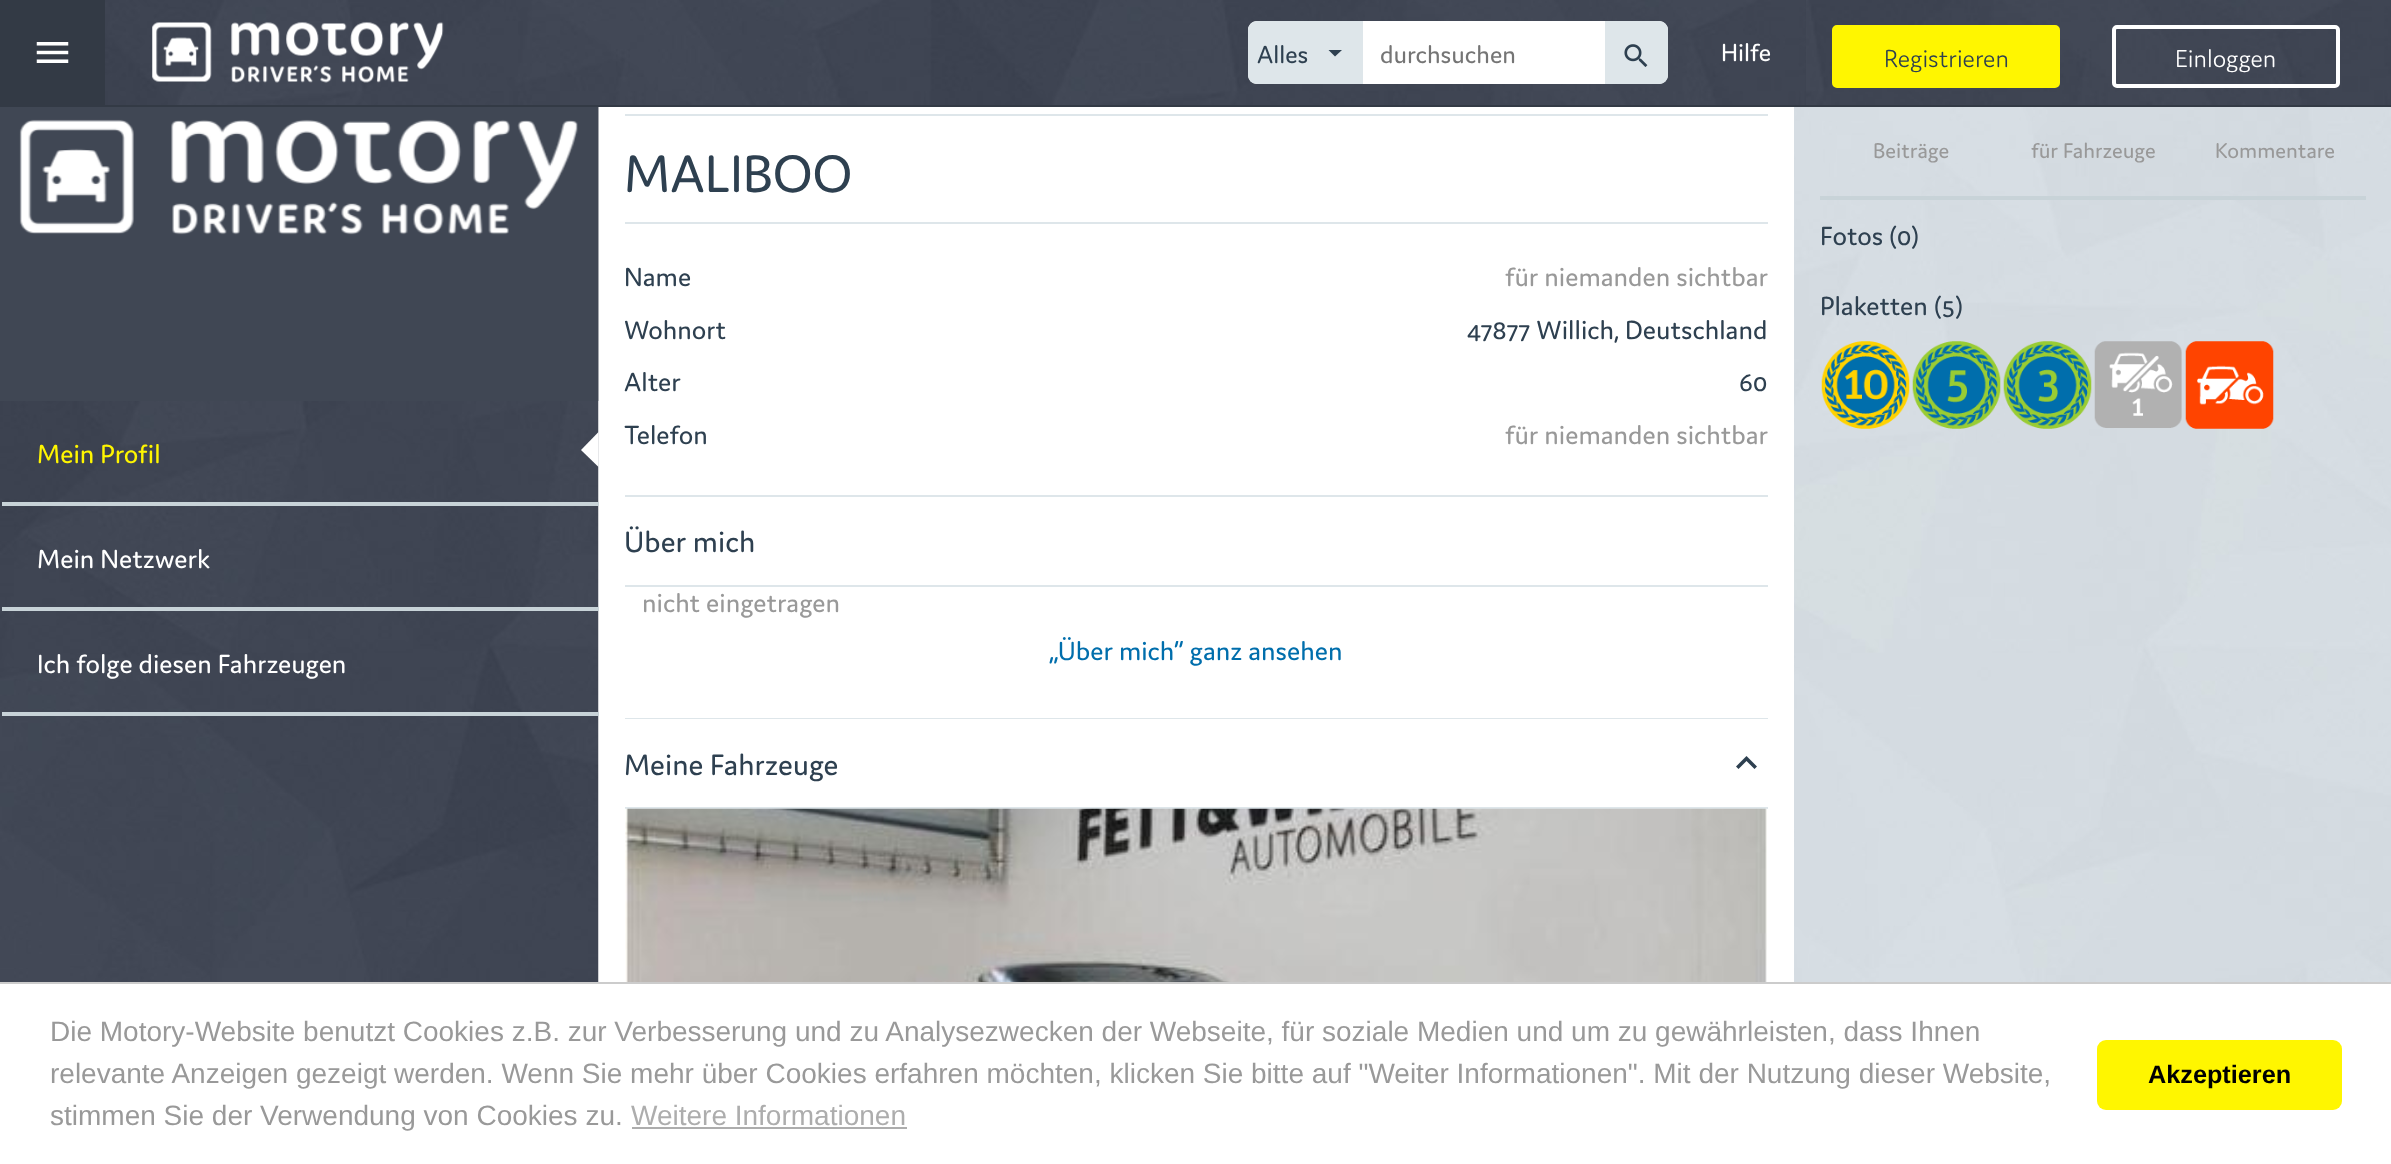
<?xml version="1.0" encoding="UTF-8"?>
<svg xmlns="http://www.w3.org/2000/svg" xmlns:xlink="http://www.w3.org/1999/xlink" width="2391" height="1164">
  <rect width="100%" height="100%" fill="#ffffff" />
  <rect y="105" width="2391" height="2" fill="#333a45" />
  <image x="105" y="0" width="1701" height="105" xlink:href="image1.png" />
  <rect width="105" height="105" fill="#333a45" />
  <image x="36" y="42" width="33" height="21" xlink:href="image2.png" />
  <image x="152" y="22" width="292" height="61" xlink:href="image3.png" />
  <rect x="1248" y="21" width="420" height="63" rx="9" fill="#ffffff" />
  <path d="M 1257 21 h 106 v 63 h -106 c -5 0 -9 -4 -9 -9 v -45 c 0 -5 4 -9 9 -9 z" fill="#dee6ea" />
  <path d="M 1328.5 50 h 13.5 l -7 6.5 z" fill="#2e4050" />
  <path d="M 1605 21 h 54 c 5 0 9 4 9 9 v 45 c 0 5 -4 9 -9 9 h -54 z" fill="#dee6ea" />
  <image x="1624" y="44" width="24" height="23" xlink:href="image4.png" />
  <image x="1806" y="0" width="585" height="105" xlink:href="image5.png" />
  <rect x="1834" y="27" width="224" height="59" rx="3" fill="#fff600" stroke="#fff600" stroke-width="4" />
  <rect x="2114" y="27" width="224" height="59" rx="3" fill="none" stroke="#ffffff" stroke-width="4" />
  <image x="0" y="401" width="599" height="581" xlink:href="image6.png" />
  <image x="0" y="107" width="599" height="294" xlink:href="image7.png" />
  <path d="M 598.5 432 v 35 l -17.5 -17 z" fill="#ffffff" />
  <rect x="2" y="502" width="597" height="4" fill="#c8d3d8" />
  <rect x="2" y="607" width="597" height="4" fill="#c8d3d8" />
  <rect x="2" y="712" width="597" height="4" fill="#c8d3d8" />
  <rect x="625" y="114" width="1143" height="2" fill="#dee6ea" />
  <rect x="625" y="222" width="1143" height="2" fill="#dee6ea" />
  <rect x="625" y="495" width="1143" height="2" fill="#dee6ea" />
  <rect x="625" y="585" width="1143" height="2" fill="#dee6ea" />
  <rect x="625" y="718" width="1143" height="1" fill="#dee6ea" />
  <rect x="625" y="807" width="1143" height="2" fill="#dee6ea" />
  <path d="M 1738.5 769 l -2.5 -2.5 l 10.5 -10.5 l 10.5 10.5 l -2.5 2.5 l -8 -8 z" fill="#2e4050" />
  <image x="625" y="808" width="1142" height="174" xlink:href="image8.png" />
  <image x="1794" y="107" width="597" height="875" xlink:href="image9.png" />
  <rect x="1820" y="196" width="546" height="4" fill="#c8d3d8" />
  <image x="1821" y="341" width="89" height="88" xlink:href="image10.png" />
  <image x="1912" y="341" width="89" height="88" xlink:href="image11.png" />
  <image x="2003" y="341" width="89" height="88" xlink:href="image12.png" />
  <image x="2094" y="341" width="88" height="87" xlink:href="image13.png" />
  <image x="2185" y="341" width="89" height="88" xlink:href="image14.png" />
  <rect y="982" width="2391" height="2" fill="#cccccc" />
  <rect x="632" y="1127" width="275" height="2" fill="#adadad" />
  <rect x="2097" y="1040" width="245" height="70" rx="9" fill="#fff600" />
  <text x="1257" y="63" style="font-family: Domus; font-size: 26.25px; fill: #2e4050">Alles</text>
  <text x="1380" y="63" style="font-family: Domus; font-size: 26.25px; fill: #757575">durchsuchen</text>
  <text x="1721" y="61" style="font-family: Domus; font-size: 26.25px; fill: #ffffff">Hilfe</text>
  <text x="1884" y="67" style="font-family: Domus; font-size: 26.25px; font-weight: 300; fill: #2e4050">Registrieren</text>
  <text x="2175" y="67" style="font-family: Domus; font-size: 26.25px; font-weight: 300; fill: #ffffff">Einloggen</text>
  <text x="37" y="463" style="font-family: Domus; font-size: 28px; fill: #fff600">Mein Profil</text>
  <text x="37" y="568" style="font-family: Domus; font-size: 28px; fill: #ffffff">Mein Netzwerk</text>
  <text x="37" y="673" style="font-family: Domus; font-size: 28px; fill: #ffffff">Ich folge diesen Fahrzeugen</text>
  <text x="624" y="192" style="font-family: Domus; font-size: 56px; fill: #2e4050">MALIBOO</text>
  <text x="624" y="286" style="font-family: Domus; font-size: 28px; fill: #2e4050">Name</text>
  <text x="1505" y="286" style="font-family: Domus; font-size: 28px; fill: #999999">für niemanden sichtbar</text>
  <text x="624" y="339" style="font-family: Domus; font-size: 28px; fill: #2e4050">Wohnort</text>
  <text x="1467" y="339" style="font-family: Domus; font-size: 28px; fill: #2e4050">47877 Willich, Deutschland</text>
  <text x="624" y="391" style="font-family: Domus; font-size: 28px; fill: #2e4050">Alter</text>
  <text x="1739" y="391" style="font-family: Domus; font-size: 28px; fill: #2e4050">60</text>
  <text x="624" y="444" style="font-family: Domus; font-size: 28px; fill: #2e4050">Telefon</text>
  <text x="1505" y="444" style="font-family: Domus; font-size: 28px; fill: #999999">für niemanden sichtbar</text>
  <text x="624" y="552" style="font-family: Domus; font-size: 31.5px; fill: #2e4050">Über mich</text>
  <text x="642" y="612" style="font-family: Domus; font-size: 28px; fill: #999999">nicht eingetragen</text>
  <text x="1049" y="660" style="font-family: Domus; font-size: 28px; fill: #006eac">„Über mich” ganz ansehen</text>
  <text x="624" y="775" style="font-family: Domus; font-size: 31.5px; fill: #2e4050">Meine Fahrzeuge</text>
  <text x="1873" y="158" style="font-family: Domus; font-size: 22.75px; fill: #999999">Beiträge</text>
  <text x="2031" y="158" style="font-family: Domus; font-size: 22.75px; fill: #999999">für Fahrzeuge</text>
  <text x="2215" y="158" style="font-family: Domus; font-size: 22.75px; fill: #999999">Kommentare</text>
  <text x="1820" y="245" style="font-family: Domus; font-size: 28px; fill: #2e4050">Fotos (0)</text>
  <text x="1820" y="315" style="font-family: Domus; font-size: 28px; fill: #2e4050">Plaketten (5)</text>
  <text x="50" y="1041" style="font-family: Liberation Sans; font-size: 28px; fill: #999999">Die Motory-Website benutzt Cookies z.B. zur Verbesserung und zu Analysezwecken der Webseite, für soziale Medien und um zu gewährleisten, dass Ihnen</text>
  <text x="50" y="1083" style="font-family: Liberation Sans; font-size: 28px; fill: #999999">relevante Anzeigen gezeigt werden. Wenn Sie mehr über Cookies erfahren möchten, klicken Sie bitte auf "Weiter Informationen". Mit der Nutzung dieser Website,</text>
  <text x="50" y="1125" style="font-family: Liberation Sans; font-size: 28px; fill: #999999">stimmen Sie der Verwendung von Cookies zu.</text>
  <text x="631" y="1125" style="font-family: Liberation Sans; font-size: 28px; fill: #adadad">Weitere Informationen</text>
  <text x="2148" y="1083" style="font-family: Liberation Sans; font-size: 25.25px; font-weight: bold; fill: #000000">Akzeptieren</text>
</svg>
